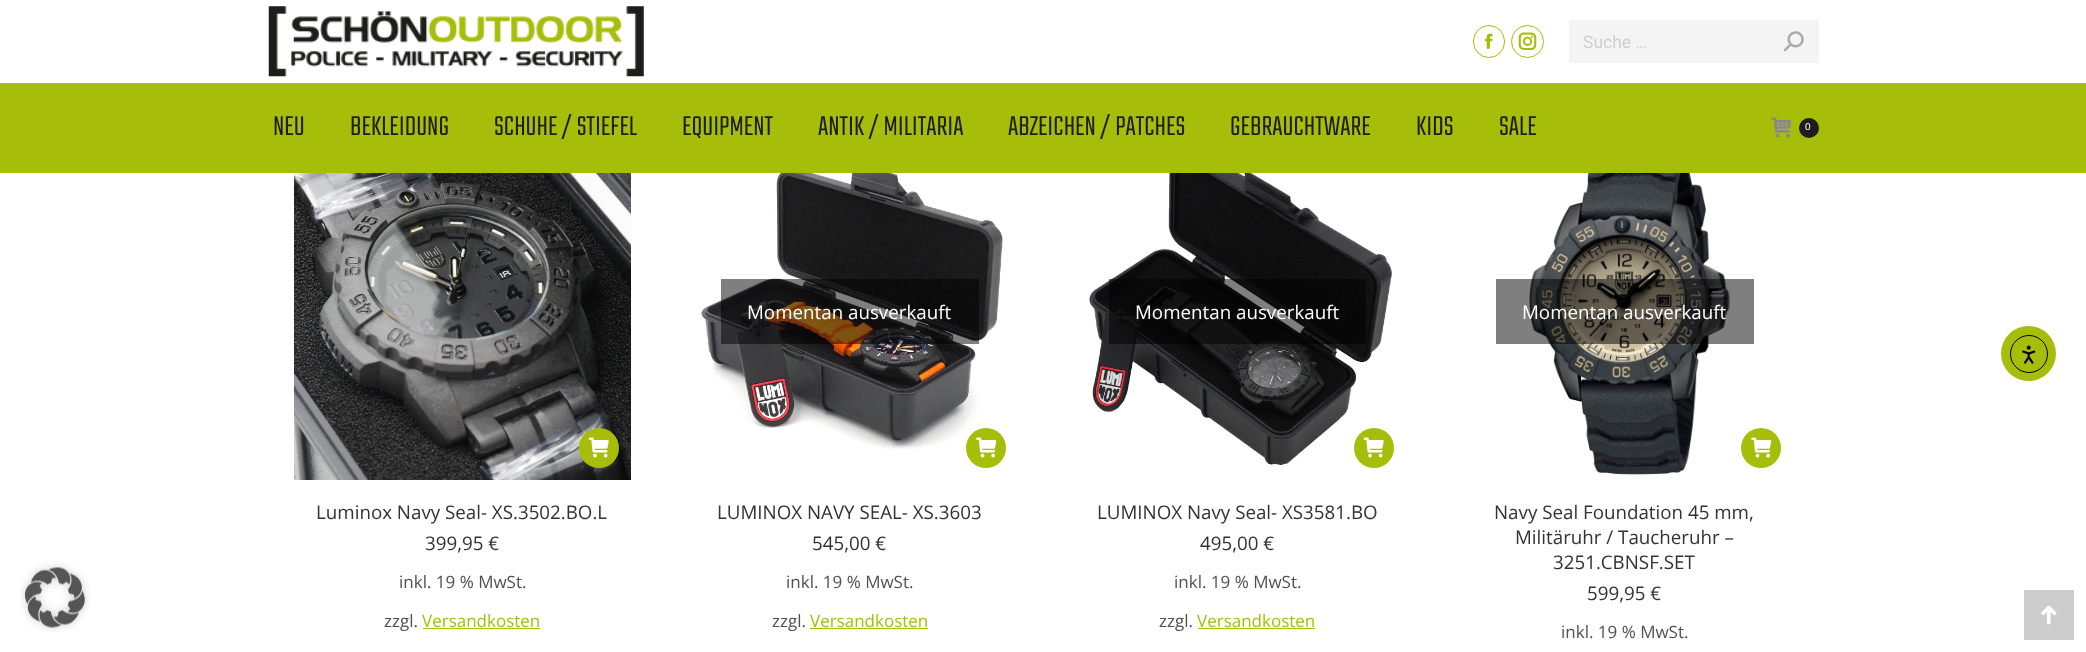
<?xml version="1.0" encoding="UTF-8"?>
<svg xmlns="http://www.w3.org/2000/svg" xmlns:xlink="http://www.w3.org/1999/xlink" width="2086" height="652">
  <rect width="100%" height="100%" fill="#ffffff" />
  <image x="268" y="6" width="376" height="71" xlink:href="image1.png" />
  <rect x="1473.5" y="25.5" width="31" height="32" rx="15.5" fill="none" stroke="#a6bd0a" />
  <image x="1485" y="33" width="8" height="16" xlink:href="image2.png" />
  <circle cx="1527.5" cy="41.5" r="16" fill="none" stroke="#a6bd0a" />
  <image x="1518" y="32" width="19" height="18" xlink:href="image3.png" />
  <rect x="1569" y="20" width="250" height="43" fill="#f4f4f4" />
  <image x="1783" y="31" width="21" height="21" xlink:href="image4.png" />
  <rect y="83" width="2086" height="90" fill="#a6bd0a" />
  <image x="1771" y="117" width="21" height="21" xlink:href="image5.png" />
  <circle cx="1809" cy="128" r="10" fill="#1d1d1b" />
  <image x="294" y="173" width="337" height="307" xlink:href="image6.png" />
  <circle cx="599" cy="448" r="20" fill="#a6bd0a" />
  <image x="588" y="437" width="21" height="21" xlink:href="image7.png" />
  <rect x="423" y="628" width="117" height="1" fill="#a6bd0a" />
  <image x="701" y="173" width="302" height="277" xlink:href="image8.png" />
  <rect x="721" y="279" width="258" height="65" fill="#000000" fill-opacity="0.5" />
  <circle cx="986" cy="448" r="20" fill="#a6bd0a" />
  <image x="976" y="437" width="21" height="21" xlink:href="image9.png" />
  <rect x="810" y="628" width="118" height="1" fill="#a6bd0a" />
  <image x="1089" y="173" width="303" height="292" xlink:href="image10.png" />
  <rect x="1109" y="279" width="257" height="65" fill="#000000" fill-opacity="0.5" />
  <circle cx="1374" cy="448" r="20" fill="#a6bd0a" />
  <image x="1363" y="437" width="21" height="21" xlink:href="image7.png" />
  <rect x="1198" y="628" width="117" height="1" fill="#a6bd0a" />
  <image x="1529" y="173" width="202" height="302" xlink:href="image11.png" />
  <rect x="1496" y="279" width="258" height="65" fill="#000000" fill-opacity="0.5" />
  <circle cx="1761" cy="448" r="20" fill="#a6bd0a" />
  <image x="1751" y="437" width="21" height="21" xlink:href="image9.png" />
  <rect x="2024" y="590" width="50" height="50" fill="#cccccc" />
  <image x="2041" y="605" width="16" height="20" xlink:href="image12.png" />
  <circle cx="2028.5" cy="353.5" r="27.5" fill="#a6bd0a" />
  <circle cx="2029" cy="354" r="18.5" fill="none" stroke="#000000" />
  <image x="2022" y="345" width="14" height="19" xlink:href="image13.png" />
  <image x="20" y="562" width="70" height="70" xlink:href="image14.png" />
  <text x="1583" y="48" style="font-family: Roboto; font-size: 17.5px; fill: #cfcfcf">Suche …</text>
  <text x="273" y="135" style="font-family: Teko; font-size: 30px; font-weight: 300; fill: #1d1d1b">NEU</text>
  <text x="350" y="135" style="font-family: Teko; font-size: 30px; font-weight: 300; fill: #1d1d1b">BEKLEIDUNG</text>
  <text x="494" y="135" style="font-family: Teko; font-size: 30px; font-weight: 300; fill: #1d1d1b">SCHUHE / STIEFEL</text>
  <text x="682" y="135" style="font-family: Teko; font-size: 30px; font-weight: 300; fill: #1d1d1b">EQUIPMENT</text>
  <text x="818" y="135" style="font-family: Teko; font-size: 30px; font-weight: 300; fill: #1d1d1b">ANTIK / MILITARIA</text>
  <text x="1008" y="135" style="font-family: Teko; font-size: 30px; font-weight: 300; fill: #1d1d1b">ABZEICHEN / PATCHES</text>
  <text x="1230" y="135" style="font-family: Teko; font-size: 30px; font-weight: 300; fill: #1d1d1b">GEBRAUCHTWARE</text>
  <text x="1416" y="135" style="font-family: Teko; font-size: 30px; font-weight: 300; fill: #1d1d1b">KIDS</text>
  <text x="1499" y="135" style="font-family: Teko; font-size: 30px; font-weight: 300; fill: #1d1d1b">SALE</text>
  <text x="1805" y="130" style="font-family: Liberation Sans; font-size: 10px; fill: #ffffff">0</text>
  <text x="316" y="519" style="font-family: Open Sans; font-size: 18.75px; fill: #333333">Luminox Navy Seal- XS.3502.BO.L</text>
  <text x="425" y="550" style="font-family: Open Sans; font-size: 18.75px; fill: #333333">399,95 €</text>
  <text x="399" y="588" style="font-family: Open Sans; font-size: 17px; fill: #515151">inkl. 19 % MwSt.</text>
  <text x="384" y="627" style="font-family: Open Sans; font-size: 17px; fill: #515151">zzgl.</text>
  <text x="422" y="627" style="font-family: Open Sans; font-size: 17px; fill: #a6bd0a">Versandkosten</text>
  <text x="747" y="319" style="font-family: Open Sans; font-size: 18.75px; fill: #ffffff">Momentan ausverkauft</text>
  <text x="717" y="519" style="font-family: Open Sans; font-size: 18.75px; fill: #333333">LUMINOX NAVY SEAL- XS.3603</text>
  <text x="812" y="550" style="font-family: Open Sans; font-size: 18.75px; fill: #333333">545,00 €</text>
  <text x="786" y="588" style="font-family: Open Sans; font-size: 17px; fill: #515151">inkl. 19 % MwSt.</text>
  <text x="772" y="627" style="font-family: Open Sans; font-size: 17px; fill: #515151">zzgl.</text>
  <text x="810" y="627" style="font-family: Open Sans; font-size: 17px; fill: #a6bd0a">Versandkosten</text>
  <text x="1135" y="319" style="font-family: Open Sans; font-size: 18.75px; fill: #ffffff">Momentan ausverkauft</text>
  <text x="1097" y="519" style="font-family: Open Sans; font-size: 18.75px; fill: #333333">LUMINOX Navy Seal- XS3581.BO</text>
  <text x="1200" y="550" style="font-family: Open Sans; font-size: 18.75px; fill: #333333">495,00 €</text>
  <text x="1174" y="588" style="font-family: Open Sans; font-size: 17px; fill: #515151">inkl. 19 % MwSt.</text>
  <text x="1159" y="627" style="font-family: Open Sans; font-size: 17px; fill: #515151">zzgl.</text>
  <text x="1197" y="627" style="font-family: Open Sans; font-size: 17px; fill: #a6bd0a">Versandkosten</text>
  <text x="1522" y="319" style="font-family: Open Sans; font-size: 18.75px; fill: #ffffff">Momentan ausverkauft</text>
  <text x="1494" y="519" style="font-family: Open Sans; font-size: 18.75px; fill: #333333">Navy Seal Foundation 45 mm,</text>
  <text x="1515" y="544" style="font-family: Open Sans; font-size: 18.75px; fill: #333333">Militäruhr / Taucheruhr –</text>
  <text x="1553" y="569" style="font-family: Open Sans; font-size: 18.75px; fill: #333333">3251.CBNSF.SET</text>
  <text x="1587" y="600" style="font-family: Open Sans; font-size: 18.75px; fill: #333333">599,95 €</text>
  <text x="1561" y="638" style="font-family: Open Sans; font-size: 17px; fill: #515151">inkl. 19 % MwSt.</text>
</svg>
